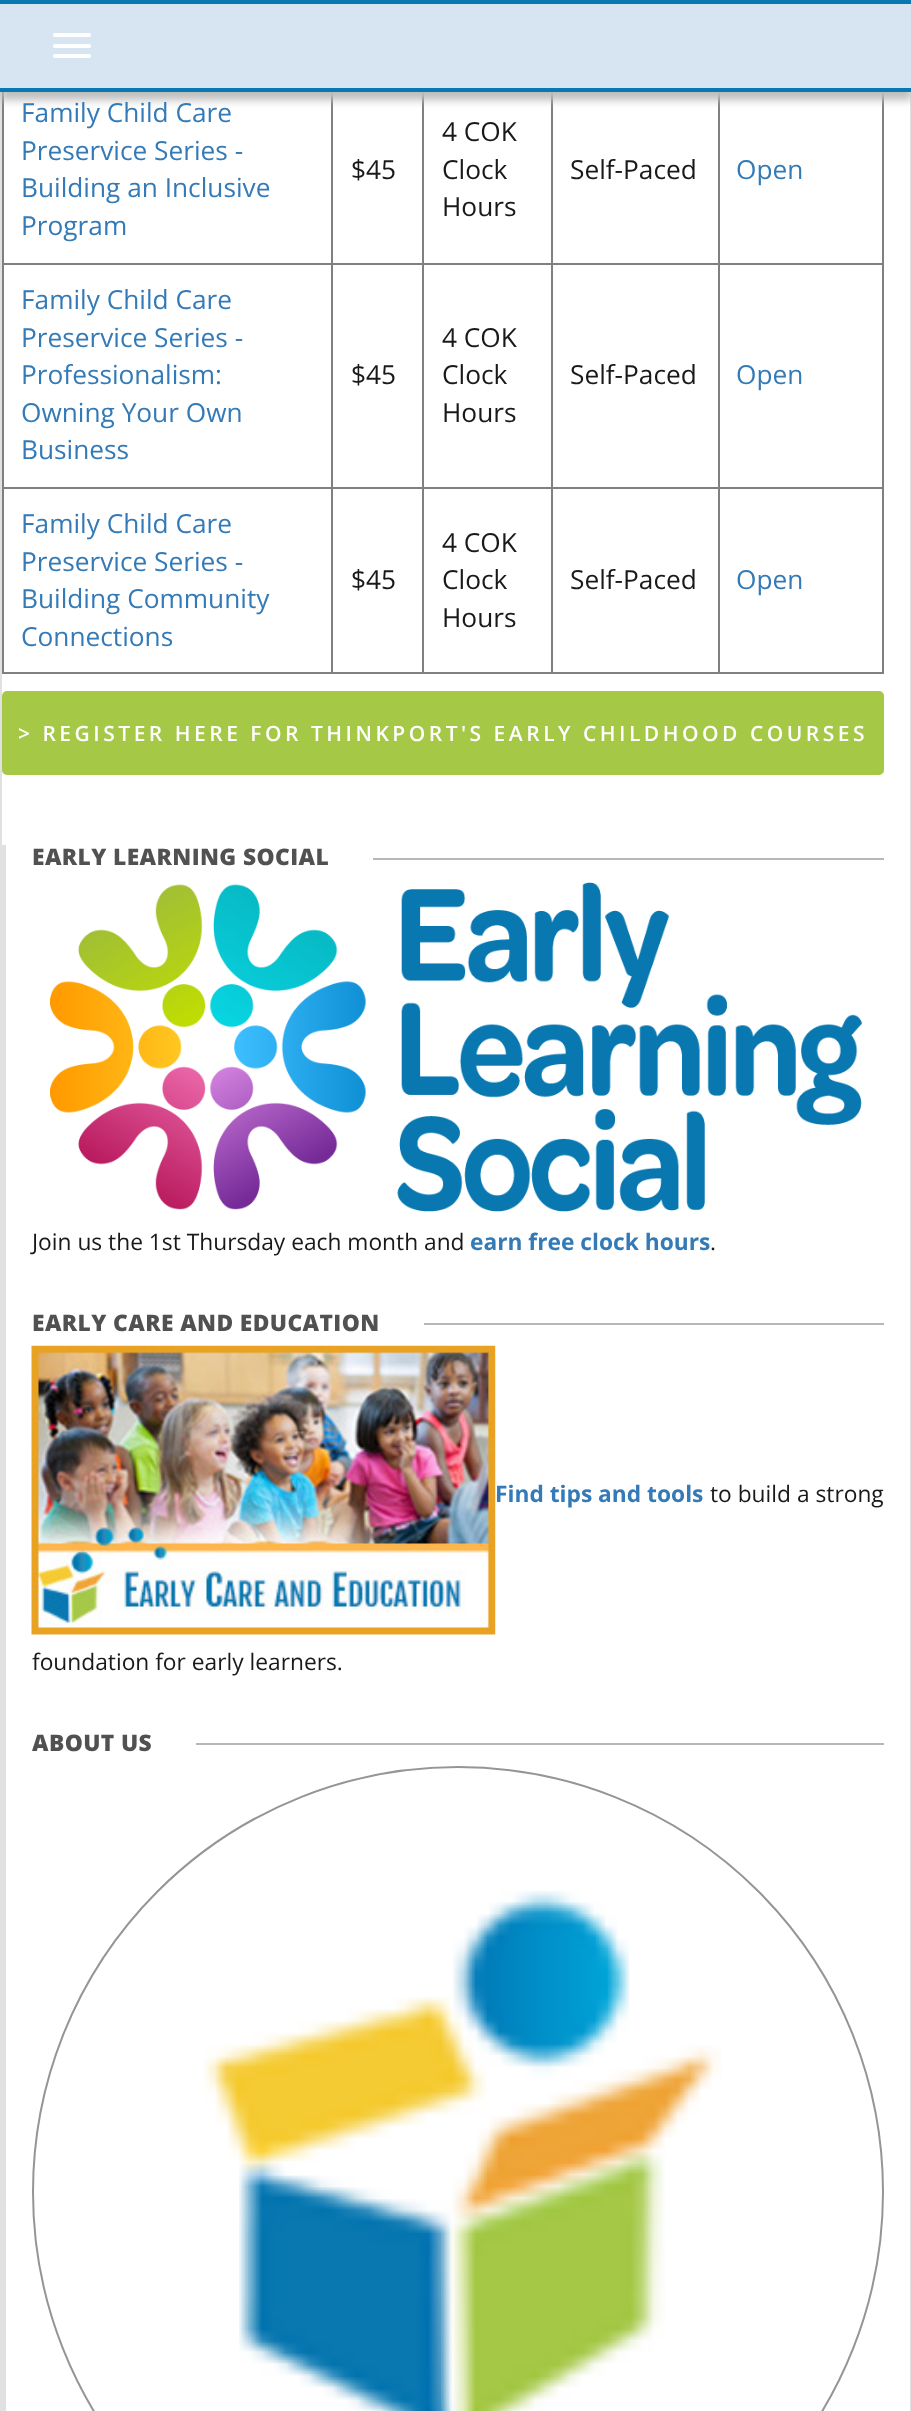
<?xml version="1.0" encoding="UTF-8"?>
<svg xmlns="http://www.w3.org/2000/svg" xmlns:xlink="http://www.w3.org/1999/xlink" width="911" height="2411">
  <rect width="100%" height="100%" fill="#ffffff" />
  <rect x="910" y="92" width="1" height="2319" fill="#e1e1e1" />
  <rect y="92" width="2" height="2319" fill="#e1e1e1" />
  <rect x="882" y="92" width="2" height="582" fill="#808080" />
  <rect x="2" y="672" width="882" height="2" fill="#808080" />
  <rect x="2" y="92" width="2" height="582" fill="#808080" />
  <rect x="718" y="263" width="166" height="2" fill="#808080" />
  <rect x="718" y="487" width="166" height="2" fill="#808080" />
  <rect x="718" y="487" width="2" height="187" fill="#808080" />
  <rect x="551" y="487" width="168" height="2" fill="#808080" />
  <rect x="718" y="263" width="2" height="225" fill="#808080" />
  <rect x="551" y="263" width="168" height="2" fill="#808080" />
  <rect x="551" y="487" width="2" height="187" fill="#808080" />
  <rect x="422" y="487" width="131" height="2" fill="#808080" />
  <rect x="551" y="263" width="2" height="225" fill="#808080" />
  <rect x="422" y="263" width="131" height="2" fill="#808080" />
  <rect x="422" y="487" width="2" height="187" fill="#808080" />
  <rect x="331" y="487" width="93" height="2" fill="#808080" />
  <rect x="422" y="263" width="2" height="225" fill="#808080" />
  <rect x="331" y="263" width="93" height="2" fill="#808080" />
  <rect x="331" y="487" width="2" height="187" fill="#808080" />
  <rect x="2" y="487" width="331" height="2" fill="#808080" />
  <rect x="331" y="263" width="2" height="225" fill="#808080" />
  <rect x="2" y="263" width="331" height="2" fill="#808080" />
  <rect x="331" y="92" width="2" height="172" fill="#808080" />
  <rect x="422" y="92" width="2" height="172" fill="#808080" />
  <rect x="551" y="92" width="2" height="172" fill="#808080" />
  <rect x="718" y="92" width="2" height="172" fill="#808080" />
  <rect y="9" width="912" height="91" fill="#bcbcbc" filter="blur(4.5px)" />
  <rect y="4" width="911" height="84" fill="#d7e5f3" />
  <rect width="911" height="4" fill="#0978b1" />
  <rect y="88" width="911" height="4" fill="#0978b1" />
  <rect x="53" y="33" width="38" height="4" rx="2" fill="#ffffff" />
  <rect x="53" y="44" width="38" height="4" rx="2" fill="#ffffff" />
  <rect x="53" y="54" width="38" height="4" rx="2" fill="#ffffff" />
  <rect x="2" y="691" width="882" height="84" rx="5" fill="#a5c847" />
  <rect x="2" y="845" width="4" height="1566" fill="#e1e1e1" />
  <rect x="373" y="858" width="511" height="2" fill="#b7b7b7" />
  <image x="50" y="882" width="812" height="330" xlink:href="image1.png" />
  <rect x="424" y="1323" width="460" height="2" fill="#b7b7b7" />
  <image x="31" y="1345" width="465" height="290" xlink:href="image2.png" />
  <rect x="196" y="1743" width="688" height="2" fill="#b7b7b7" />
  <circle cx="458" cy="2192" r="425" fill="none" stroke="#959595" stroke-width="2" />
  <image x="204" y="1890" width="518" height="521" xlink:href="image3.png" />
  <text x="21" y="122" style="font-family: Open Sans; font-size: 26.25px; fill: #337ab7">Family Child Care</text>
  <text x="21" y="160" style="font-family: Open Sans; font-size: 26.25px; fill: #337ab7">Preservice Series -</text>
  <text x="21" y="197" style="font-family: Open Sans; font-size: 26.25px; fill: #337ab7">Building an Inclusive</text>
  <text x="21" y="235" style="font-family: Open Sans; font-size: 26.25px; fill: #337ab7">Program</text>
  <text x="351" y="179" style="font-family: Open Sans; font-size: 26.25px; fill: #1a1919">$45</text>
  <text x="442" y="141" style="font-family: Open Sans; font-size: 26.25px; fill: #1a1919">4 COK</text>
  <text x="442" y="179" style="font-family: Open Sans; font-size: 26.25px; fill: #1a1919">Clock</text>
  <text x="442" y="216" style="font-family: Open Sans; font-size: 26.25px; fill: #1a1919">Hours</text>
  <text x="570" y="179" style="font-family: Open Sans; font-size: 26.25px; fill: #1a1919">Self-Paced</text>
  <text x="736" y="179" style="font-family: Open Sans; font-size: 26.25px; fill: #337ab7">Open</text>
  <text x="21" y="309" style="font-family: Open Sans; font-size: 26.25px; fill: #337ab7">Family Child Care</text>
  <text x="21" y="347" style="font-family: Open Sans; font-size: 26.25px; fill: #337ab7">Preservice Series -</text>
  <text x="21" y="384" style="font-family: Open Sans; font-size: 26.25px; fill: #337ab7">Professionalism:</text>
  <text x="21" y="422" style="font-family: Open Sans; font-size: 26.25px; fill: #337ab7">Owning Your Own</text>
  <text x="21" y="459" style="font-family: Open Sans; font-size: 26.25px; fill: #337ab7">Business</text>
  <text x="351" y="384" style="font-family: Open Sans; font-size: 26.25px; fill: #1a1919">$45</text>
  <text x="442" y="347" style="font-family: Open Sans; font-size: 26.25px; fill: #1a1919">4 COK</text>
  <text x="442" y="384" style="font-family: Open Sans; font-size: 26.25px; fill: #1a1919">Clock</text>
  <text x="442" y="422" style="font-family: Open Sans; font-size: 26.25px; fill: #1a1919">Hours</text>
  <text x="570" y="384" style="font-family: Open Sans; font-size: 26.25px; fill: #1a1919">Self-Paced</text>
  <text x="736" y="384" style="font-family: Open Sans; font-size: 26.25px; fill: #337ab7">Open</text>
  <text x="21" y="533" style="font-family: Open Sans; font-size: 26.25px; fill: #337ab7">Family Child Care</text>
  <text x="21" y="571" style="font-family: Open Sans; font-size: 26.25px; fill: #337ab7">Preservice Series -</text>
  <text x="21" y="608" style="font-family: Open Sans; font-size: 26.25px; fill: #337ab7">Building Community</text>
  <text x="21" y="646" style="font-family: Open Sans; font-size: 26.25px; fill: #337ab7">Connections</text>
  <text x="351" y="589" style="font-family: Open Sans; font-size: 26.25px; fill: #1a1919">$45</text>
  <text x="442" y="552" style="font-family: Open Sans; font-size: 26.25px; fill: #1a1919">4 COK</text>
  <text x="442" y="589" style="font-family: Open Sans; font-size: 26.25px; fill: #1a1919">Clock</text>
  <text x="442" y="627" style="font-family: Open Sans; font-size: 26.25px; fill: #1a1919">Hours</text>
  <text x="570" y="589" style="font-family: Open Sans; font-size: 26.25px; fill: #1a1919">Self-Paced</text>
  <text x="736" y="589" style="font-family: Open Sans; font-size: 26.25px; fill: #337ab7">Open</text>
  <text x="18" y="741" style="font-family: Open Sans; font-size: 21px; font-weight: 600; letter-spacing: 3.5px; fill: #ffffff">&gt; REGISTER HERE FOR THINKPORT'S EARLY CHILDHOOD COURSES</text>
  <text x="32" y="865" style="font-family: Open Sans; font-size: 22.75px; font-weight: 800; letter-spacing: 0.4px; fill: #515151">EARLY LEARNING SOCIAL</text>
  <text x="32" y="1250" style="font-family: Open Sans; font-size: 22.75px; fill: #1a1919">Join us the 1st Thursday each month and</text>
  <text x="470" y="1250" style="font-family: Open Sans; font-size: 22.75px; font-weight: bold; fill: #337ab7">earn free clock hours</text>
  <text x="710" y="1250" style="font-family: Open Sans; font-size: 22.75px; fill: #1a1919">.</text>
  <text x="32" y="1331" style="font-family: Open Sans; font-size: 22.75px; font-weight: 800; letter-spacing: 0.4px; fill: #515151">EARLY CARE AND EDUCATION</text>
  <text x="495" y="1502" style="font-family: Open Sans; font-size: 22.75px; font-weight: bold; fill: #337ab7">Find tips and tools</text>
  <text x="710" y="1502" style="font-family: Open Sans; font-size: 22.75px; fill: #1a1919">to build a strong</text>
  <text x="32" y="1670" style="font-family: Open Sans; font-size: 22.75px; fill: #1a1919">foundation for early learners.</text>
  <text x="32" y="1751" style="font-family: Open Sans; font-size: 22.75px; font-weight: 800; letter-spacing: 0.4px; fill: #515151">ABOUT US</text>
</svg>
